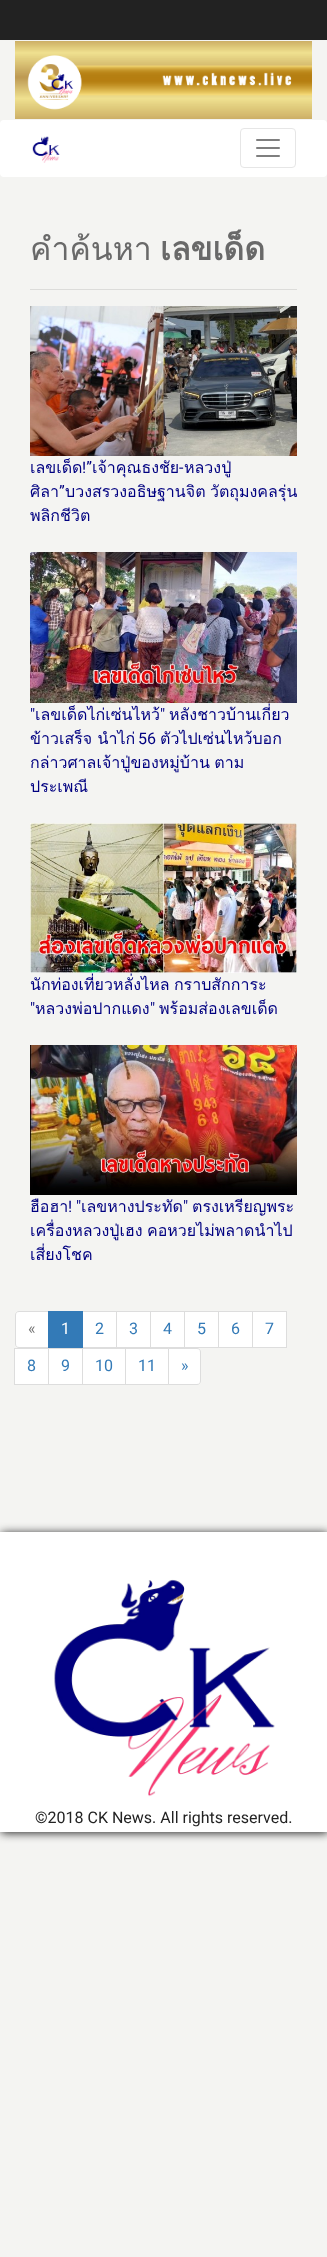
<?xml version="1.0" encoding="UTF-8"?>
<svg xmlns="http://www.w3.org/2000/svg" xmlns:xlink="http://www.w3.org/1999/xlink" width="327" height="2257">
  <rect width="100%" height="100%" fill="#f4f4f2" />
  <rect width="327" height="40" fill="#222222" />
  <image x="15" y="41" width="297" height="78" xlink:href="image1.png" />
  <rect y="120" width="327" height="57" rx="4" fill="#ffffff" />
  <image x="32" y="136" width="28" height="27" xlink:href="image2.png" />
  <rect x="240.5" y="128.5" width="55" height="39" rx="3.5" fill="none" stroke="#e6e6e6" />
  <image x="256" y="139" width="24" height="18" xlink:href="image3.png" />
  <rect x="30" y="289" width="267" height="1" fill="#dcdcda" />
  <image x="30" y="306" width="267" height="150" xlink:href="image4.png" />
  <image x="30" y="552" width="267" height="151" xlink:href="image5.png" />
  <image x="30" y="823" width="267" height="150" xlink:href="image6.png" />
  <image x="30" y="1045" width="267" height="150" xlink:href="image7.png" />
  <path d="M 19 1311.5 h 29.5 v 36 h -29.5 c -2 0 -3.5 -1.5 -3.5 -3.5 v -29 c 0 -2 1.5 -3.5 3.5 -3.5 z" fill="#ffffff" stroke="#dddddd" />
  <rect x="82.5" y="1311.5" width="34" height="36" fill="#ffffff" stroke="#dddddd" />
  <rect x="48" y="1311" width="35" height="37" fill="#337ab7" />
  <rect x="116.5" y="1311.5" width="34" height="36" fill="#ffffff" stroke="#dddddd" />
  <rect x="150.5" y="1311.5" width="34" height="36" fill="#ffffff" stroke="#dddddd" />
  <rect x="184.5" y="1311.5" width="34" height="36" fill="#ffffff" stroke="#dddddd" />
  <rect x="218.5" y="1311.5" width="34" height="36" fill="#ffffff" stroke="#dddddd" />
  <rect x="252.5" y="1311.5" width="34" height="36" fill="#ffffff" stroke="#dddddd" />
  <rect x="14.5" y="1348.5" width="34" height="36" fill="#ffffff" stroke="#dddddd" />
  <rect x="48.5" y="1348.5" width="34" height="36" fill="#ffffff" stroke="#dddddd" />
  <rect x="82.5" y="1348.5" width="43" height="36" fill="#ffffff" stroke="#dddddd" />
  <rect x="125.5" y="1348.5" width="43" height="36" fill="#ffffff" stroke="#dddddd" />
  <path d="M 168.5 1348.5 h 28.5 c 2 0 3.5 1.5 3.5 3.5 v 29 c 0 2 -1.5 3.5 -3.5 3.5 h -28.5 z" fill="#ffffff" stroke="#dddddd" />
  <rect x="1" y="1533" width="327" height="300" fill="#222222" filter="blur(5px)" />
  <rect y="1532" width="327" height="300" fill="#ffffff" />
  <image x="54" y="1579" width="221" height="218" xlink:href="image8.png" />
  <text x="30" y="260" style="font-family: Loma; font-size: 32px; fill: #696969">คำค้นหา</text>
  <text x="160" y="260" style="font-family: Loma; font-size: 32px; font-weight: bold; fill: #696969">เลขเด็ด</text>
  <text x="30" y="473" style="font-family: Loma; font-size: 16px; fill: #000080">เลขเด็ด</text>
  <text x="82" y="473" style="font-family: Roboto; font-size: 16px; fill: #000080">!”</text>
  <text x="92" y="473" style="font-family: Loma; font-size: 16px; fill: #000080">เจ้าคุณธงชัย</text>
  <text x="179" y="473" style="font-family: Roboto; font-size: 16px; fill: #000080">-</text>
  <text x="184" y="473" style="font-family: Loma; font-size: 16px; fill: #000080">หลวงปู่</text>
  <text x="30" y="497" style="font-family: Loma; font-size: 16px; fill: #000080">ศิลา</text>
  <text x="59" y="497" style="font-family: Roboto; font-size: 16px; fill: #000080">”</text>
  <text x="65" y="497" word-spacing="-1" style="font-family: Loma; font-size: 16px; fill: #000080">บวงสรวงอธิษฐานจิต วัตถุมงคลรุ่น</text>
  <text x="30" y="521" style="font-family: Loma; font-size: 16px; fill: #000080">พลิกชีวิต</text>
  <text x="30" y="720" style="font-family: Roboto; font-size: 16px; fill: #000080">"</text>
  <text x="35" y="720" style="font-family: Loma; font-size: 16px; fill: #000080">เลขเด็ดไก่เซ่นไหว้</text>
  <text x="160" y="720" style="font-family: Roboto; font-size: 16px; fill: #000080">"</text>
  <text x="169" y="720" style="font-family: Loma; font-size: 16px; fill: #000080">หลังชาวบ้านเกี่ยว</text>
  <text x="30" y="744" style="font-family: Loma; font-size: 16px; fill: #000080">ข้าวเสร็จ นำไก่</text>
  <text x="138" y="744" style="font-family: Roboto; font-size: 16px; fill: #000080">56</text>
  <text x="160" y="744" style="font-family: Loma; font-size: 16px; fill: #000080">ตัวไปเซ่นไหว้บอก</text>
  <text x="30" y="768" word-spacing="-1" style="font-family: Loma; font-size: 16px; fill: #000080">กล่าวศาลเจ้าปู่ของหมู่บ้าน ตาม</text>
  <text x="30" y="792" style="font-family: Loma; font-size: 16px; fill: #000080">ประเพณี</text>
  <text x="30" y="990" word-spacing="-1" style="font-family: Loma; font-size: 16px; fill: #000080">นักท่องเที่ยวหลั่งไหล กราบสักการะ</text>
  <text x="30" y="1014" style="font-family: Roboto; font-size: 16px; fill: #000080">"</text>
  <text x="35" y="1014" style="font-family: Loma; font-size: 16px; fill: #000080">หลวงพ่อปากแดง</text>
  <text x="150" y="1014" style="font-family: Roboto; font-size: 16px; fill: #000080">"</text>
  <text x="159" y="1014" style="font-family: Loma; font-size: 16px; fill: #000080">พร้อมส่องเลขเด็ด</text>
  <text x="30" y="1212" style="font-family: Loma; font-size: 16px; fill: #000080">ฮือฮา</text>
  <text x="68" y="1212" style="font-family: Roboto; font-size: 16px; fill: #000080">! "</text>
  <text x="81" y="1212" style="font-family: Loma; font-size: 16px; fill: #000080">เลขหางประทัด</text>
  <text x="183" y="1212" style="font-family: Roboto; font-size: 16px; fill: #000080">"</text>
  <text x="192" y="1212" style="font-family: Loma; font-size: 16px; fill: #000080">ตรงเหรียญพระ</text>
  <text x="30" y="1236" word-spacing="-1" style="font-family: Loma; font-size: 16px; fill: #000080">เครื่องหลวงปู่เฮง คอหวยไม่พลาดนำไป</text>
  <text x="30" y="1260" style="font-family: Loma; font-size: 16px; fill: #000080">เสี่ยงโชค</text>
  <text x="28" y="1334" style="font-family: Roboto; font-size: 16px; fill: #777777">«</text>
  <text x="61" y="1334" style="font-family: Roboto; font-size: 16px; fill: #ffffff">1</text>
  <text x="95" y="1334" style="font-family: Roboto; font-size: 16px; fill: #337ab7">2</text>
  <text x="129" y="1334" style="font-family: Roboto; font-size: 16px; fill: #337ab7">3</text>
  <text x="163" y="1334" style="font-family: Roboto; font-size: 16px; fill: #337ab7">4</text>
  <text x="197" y="1334" style="font-family: Roboto; font-size: 16px; fill: #337ab7">5</text>
  <text x="231" y="1334" style="font-family: Roboto; font-size: 16px; fill: #337ab7">6</text>
  <text x="265" y="1334" style="font-family: Roboto; font-size: 16px; fill: #337ab7">7</text>
  <text x="27" y="1371" style="font-family: Roboto; font-size: 16px; fill: #337ab7">8</text>
  <text x="61" y="1371" style="font-family: Roboto; font-size: 16px; fill: #337ab7">9</text>
  <text x="95" y="1371" style="font-family: Roboto; font-size: 16px; fill: #337ab7">10</text>
  <text x="138" y="1371" style="font-family: Roboto; font-size: 16px; fill: #337ab7">11</text>
  <text x="181" y="1371" style="font-family: Roboto; font-size: 16px; fill: #337ab7">»</text>
  <text x="35" y="1823" style="font-family: Roboto; font-size: 16px; fill: #222222">©2018 CK News. All rights reserved.</text>
</svg>
